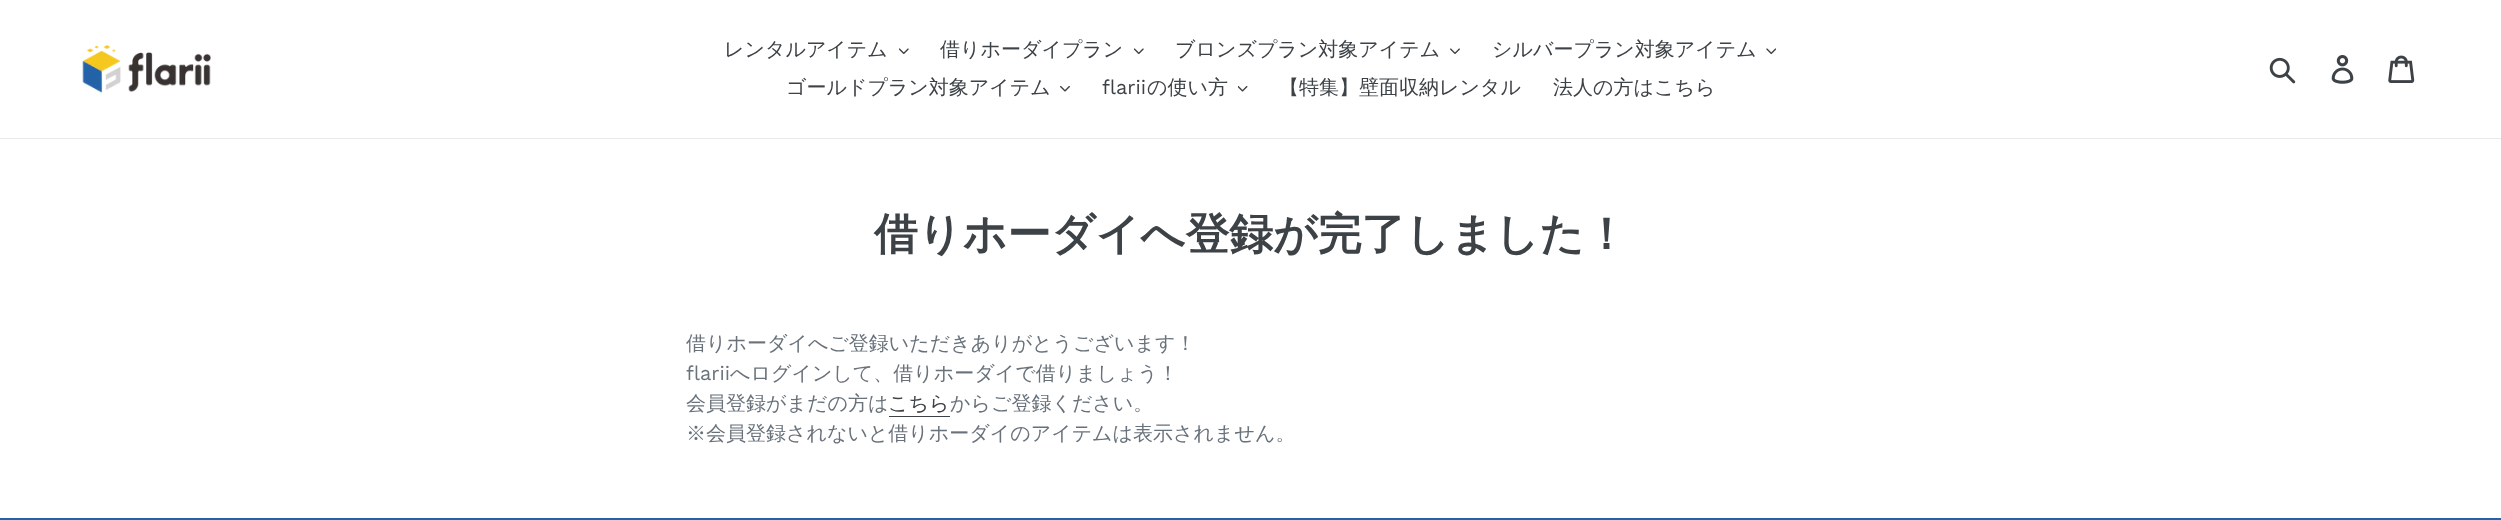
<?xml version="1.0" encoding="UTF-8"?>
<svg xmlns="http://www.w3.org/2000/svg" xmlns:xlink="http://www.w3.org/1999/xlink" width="2501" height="520">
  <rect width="100%" height="100%" fill="#ffffff" />
  <rect y="138" width="2501" height="1" fill="#e8e9eb" />
  <image x="82" y="45" width="129" height="48" xlink:href="image1.png" />
  <image x="899" y="48" width="10" height="7" xlink:href="image2.png" />
  <image x="1134" y="48" width="10" height="7" xlink:href="image2.png" />
  <image x="1450" y="48" width="10" height="6" xlink:href="image3.png" />
  <image x="1766" y="48" width="10" height="7" xlink:href="image4.png" />
  <image x="1060" y="85" width="10" height="7" xlink:href="image5.png" />
  <image x="1238" y="85" width="10" height="7" xlink:href="image6.png" />
  <image x="2269" y="57" width="27" height="27" xlink:href="image7.png" />
  <image x="2331" y="55" width="23" height="29" xlink:href="image8.png" />
  <image x="2388" y="55" width="27" height="28" xlink:href="image9.png" />
  <rect x="889" y="416" width="61" height="1" fill="#3d4246" />
  <rect y="518" width="2501" height="2" fill="#2363a8" />
  <text x="724" y="56" style="font-family: WenQuanYi Zen Hei; font-size: 20px; font-weight: 500; fill: #3d4246">レンタルアイテム</text>
  <text x="940" y="56" style="font-family: WenQuanYi Zen Hei; font-size: 20px; font-weight: 500; fill: #3d4246">借りホーダイプラン</text>
  <text x="1175" y="56" style="font-family: WenQuanYi Zen Hei; font-size: 20px; font-weight: 500; fill: #3d4246">ブロンズプラン対象アイテム</text>
  <text x="1492" y="56" style="font-family: WenQuanYi Zen Hei; font-size: 20px; font-weight: 500; fill: #3d4246">シルバープラン対象アイテム</text>
  <text x="786" y="94" style="font-family: WenQuanYi Zen Hei; font-size: 20px; font-weight: 500; fill: #3d4246">ゴールドプラン対象アイテム</text>
  <text x="1102" y="94" style="font-family: Work Sans; font-size: 20px; fill: #3d4246">flarii</text>
  <text x="1147" y="94" style="font-family: WenQuanYi Zen Hei; font-size: 20px; font-weight: 500; fill: #3d4246">の使い方</text>
  <text x="1279" y="94" style="font-family: WenQuanYi Zen Hei; font-size: 20px; font-weight: 500; fill: #3d4246">【特集】壁面収納レンタル</text>
  <text x="1553" y="94" style="font-family: WenQuanYi Zen Hei; font-size: 20px; font-weight: 500; fill: #3d4246">法人の方はこちら</text>
  <text x="874" y="249" style="font-family: WenQuanYi Zen Hei; font-size: 43.75px; font-weight: bold; fill: #3d4246">借りホーダイへ登録が完了しました！</text>
  <text x="686" y="350" style="font-family: WenQuanYi Zen Hei; font-size: 20px; font-weight: 500; fill: #69727b">借りホーダイへご登録いただきありがとうございます！</text>
  <text x="686" y="380" style="font-family: Work Sans; font-size: 20px; fill: #69727b">flarii</text>
  <text x="730" y="380" style="font-family: WenQuanYi Zen Hei; font-size: 20px; font-weight: 500; fill: #69727b">へログインして、借りホーダイで借りましょう！</text>
  <text x="686" y="410" style="font-family: WenQuanYi Zen Hei; font-size: 20px; font-weight: 500; fill: #69727b">会員登録がまだの方は</text>
  <text x="888" y="410" style="font-family: WenQuanYi Zen Hei; font-size: 20px; font-weight: 500; fill: #3d4246">こちら</text>
  <text x="950" y="410" style="font-family: WenQuanYi Zen Hei; font-size: 20px; font-weight: 500; fill: #69727b">からご登録ください。</text>
  <text x="686" y="440" style="font-family: WenQuanYi Zen Hei; font-size: 20px; font-weight: 500; fill: #69727b">※会員登録されないと借りホーダイのアイテムは表示されません。</text>
</svg>
